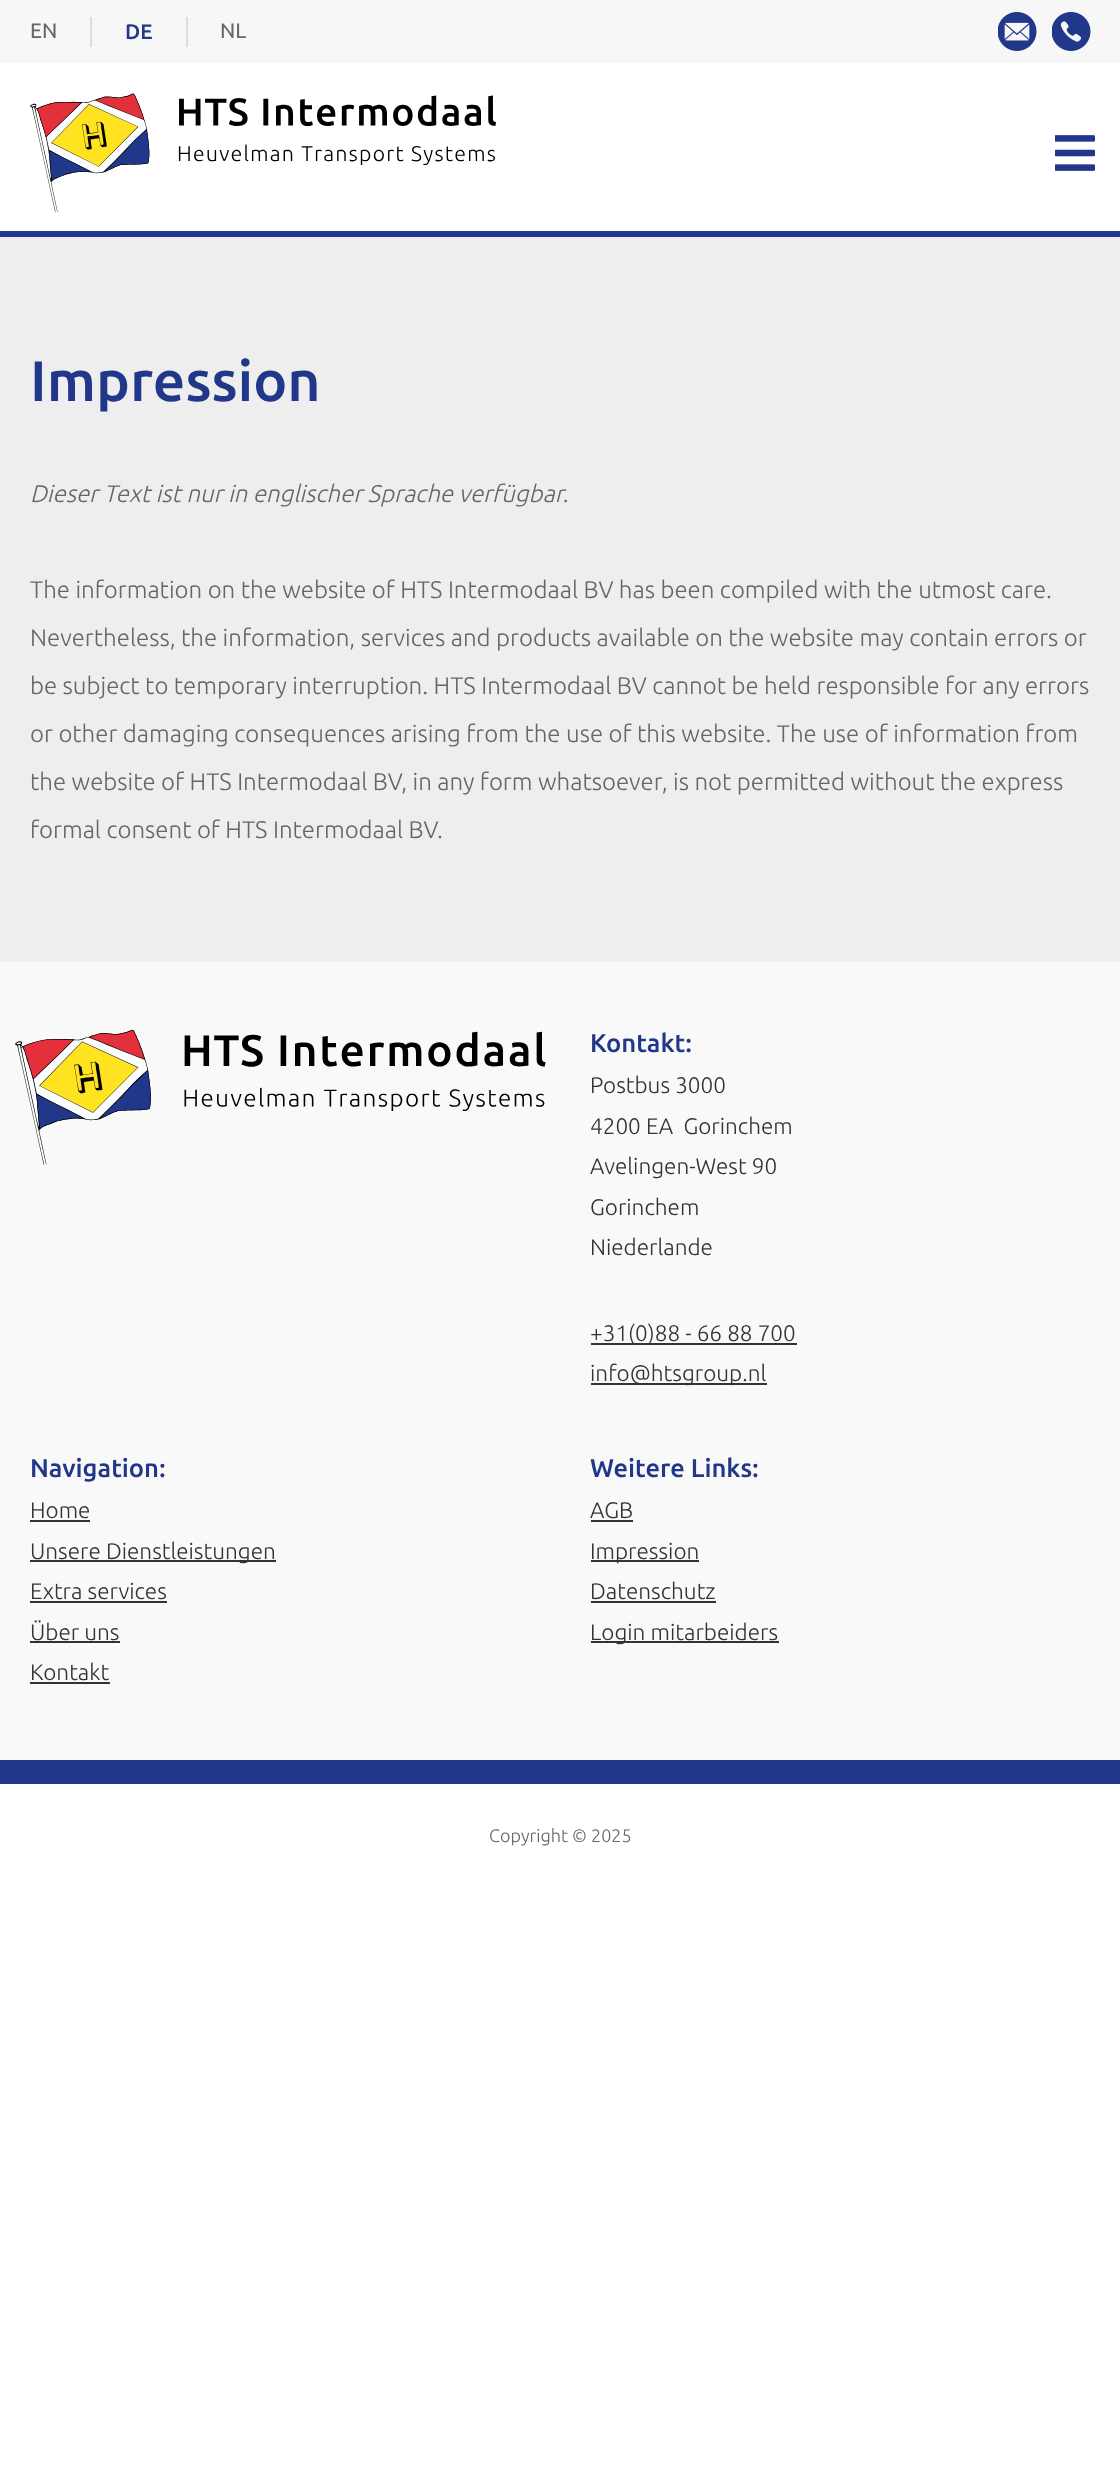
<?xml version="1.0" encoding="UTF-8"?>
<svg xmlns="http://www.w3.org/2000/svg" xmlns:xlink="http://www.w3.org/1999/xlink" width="1120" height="2479">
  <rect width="100%" height="100%" fill="#ffffff" />
  <rect width="1120" height="63" fill="#f7f7f7" />
  <rect x="90" y="17" width="2" height="30" fill="#dddddd" />
  <rect x="186" y="17" width="2" height="30" fill="#dddddd" />
  <image x="998" y="12" width="39" height="39" xlink:href="image1.png" />
  <image x="1052" y="12" width="39" height="39" xlink:href="image2.png" />
  <image x="30" y="93" width="466" height="120" xlink:href="image3.png" />
  <image x="1055" y="135" width="40" height="36" xlink:href="image4.png" />
  <rect y="231" width="1120" height="6" fill="#213789" />
  <rect y="237" width="1120" height="725" fill="#eeeeee" />
  <rect y="962" width="1120" height="798" fill="#f9f9f9" />
  <image x="15" y="1029" width="531" height="136" xlink:href="image5.png" />
  <rect x="591" y="1343" width="206" height="2" fill="#333333" />
  <rect x="591" y="1383" width="176" height="2" fill="#333333" />
  <rect x="30" y="1520" width="60" height="2" fill="#333333" />
  <rect x="30" y="1560" width="246" height="2" fill="#333333" />
  <rect x="30" y="1601" width="137" height="2" fill="#333333" />
  <rect x="30" y="1641" width="90" height="2" fill="#333333" />
  <rect x="30" y="1682" width="80" height="2" fill="#333333" />
  <rect x="591" y="1520" width="42" height="2" fill="#333333" />
  <rect x="591" y="1560" width="108" height="2" fill="#333333" />
  <rect x="591" y="1601" width="125" height="2" fill="#333333" />
  <rect x="591" y="1641" width="188" height="2" fill="#333333" />
  <rect y="1760" width="1120" height="24" fill="#213789" />
  <text x="30" y="38" style="font-family: Ubuntu; font-size: 21px; fill: #666666">EN</text>
  <text x="125" y="39" style="font-family: Ubuntu; font-size: 21px; font-weight: 500; fill: #213789">DE</text>
  <text x="220" y="38" style="font-family: Ubuntu; font-size: 21px; fill: #666666">NL</text>
  <text x="30" y="401" style="font-family: Ubuntu; font-size: 57px; font-weight: 500; fill: #213789">Impression</text>
  <text x="30" y="502" style="font-family: Ubuntu; font-size: 24px; font-weight: 300; font-style: italic; fill: #666666">Dieser Text ist nur in englischer Sprache verfügbar.</text>
  <text x="30" y="598" style="font-family: Ubuntu; font-size: 24px; font-weight: 300; fill: #666666">The information on the website of HTS Intermodaal BV has been compiled with the utmost care.</text>
  <text x="30" y="646" style="font-family: Ubuntu; font-size: 24px; font-weight: 300; fill: #666666">Nevertheless, the information, services and products available on the website may contain errors or</text>
  <text x="30" y="694" style="font-family: Ubuntu; font-size: 24px; font-weight: 300; fill: #666666">be subject to temporary interruption. HTS Intermodaal BV cannot be held responsible for any errors</text>
  <text x="30" y="742" style="font-family: Ubuntu; font-size: 24px; font-weight: 300; fill: #666666">or other damaging consequences arising from the use of this website. The use of information from</text>
  <text x="30" y="790" style="font-family: Ubuntu; font-size: 24px; font-weight: 300; fill: #666666">the website of HTS Intermodaal BV, in any form whatsoever, is not permitted without the express</text>
  <text x="30" y="838" style="font-family: Ubuntu; font-size: 24px; font-weight: 300; fill: #666666">formal consent of HTS Intermodaal BV.</text>
  <text x="590" y="1052" style="font-family: Ubuntu; font-size: 25.5px; font-weight: 500; fill: #213789">Kontakt:</text>
  <text x="590" y="1093" style="font-family: Ubuntu; font-size: 22.5px; font-weight: 300; fill: #333333">Postbus 3000</text>
  <text x="590" y="1134" style="font-family: Ubuntu; font-size: 22.5px; font-weight: 300; fill: #333333" xml:space="preserve">4200 EA  Gorinchem</text>
  <text x="590" y="1174" style="font-family: Ubuntu; font-size: 22.5px; font-weight: 300; fill: #333333">Avelingen-West 90</text>
  <text x="590" y="1215" style="font-family: Ubuntu; font-size: 22.5px; font-weight: 300; fill: #333333">Gorinchem</text>
  <text x="590" y="1255" style="font-family: Ubuntu; font-size: 22.5px; font-weight: 300; fill: #333333">Niederlande</text>
  <text x="590" y="1341" style="font-family: Ubuntu; font-size: 22.5px; font-weight: 300; fill: #333333">+31(0)88 - 66 88 700</text>
  <text x="590" y="1381" style="font-family: Ubuntu; font-size: 22.5px; font-weight: 300; fill: #333333">info@htsgroup.nl</text>
  <text x="30" y="1477" style="font-family: Ubuntu; font-size: 25.5px; font-weight: 500; fill: #213789">Navigation:</text>
  <text x="30" y="1518" style="font-family: Ubuntu; font-size: 22.5px; font-weight: 300; fill: #333333">Home</text>
  <text x="30" y="1559" style="font-family: Ubuntu; font-size: 22.5px; font-weight: 300; fill: #333333">Unsere Dienstleistungen</text>
  <text x="30" y="1599" style="font-family: Ubuntu; font-size: 22.5px; font-weight: 300; fill: #333333">Extra services</text>
  <text x="30" y="1640" style="font-family: Ubuntu; font-size: 22.5px; font-weight: 300; fill: #333333">Über uns</text>
  <text x="30" y="1680" style="font-family: Ubuntu; font-size: 22.5px; font-weight: 300; fill: #333333">Kontakt</text>
  <text x="590" y="1477" style="font-family: Ubuntu; font-size: 25.5px; font-weight: 500; fill: #213789">Weitere Links:</text>
  <text x="590" y="1518" style="font-family: Ubuntu; font-size: 22.5px; font-weight: 300; fill: #333333">AGB</text>
  <text x="590" y="1559" style="font-family: Ubuntu; font-size: 22.5px; font-weight: 300; fill: #333333">Impression</text>
  <text x="590" y="1599" style="font-family: Ubuntu; font-size: 22.5px; font-weight: 300; fill: #333333">Datenschutz</text>
  <text x="590" y="1640" style="font-family: Ubuntu; font-size: 22.5px; font-weight: 300; fill: #333333">Login mitarbeiders</text>
  <text x="489" y="1842" style="font-family: Ubuntu; font-size: 18px; font-weight: 300; fill: #666666">Copyright © 2025</text>
</svg>
